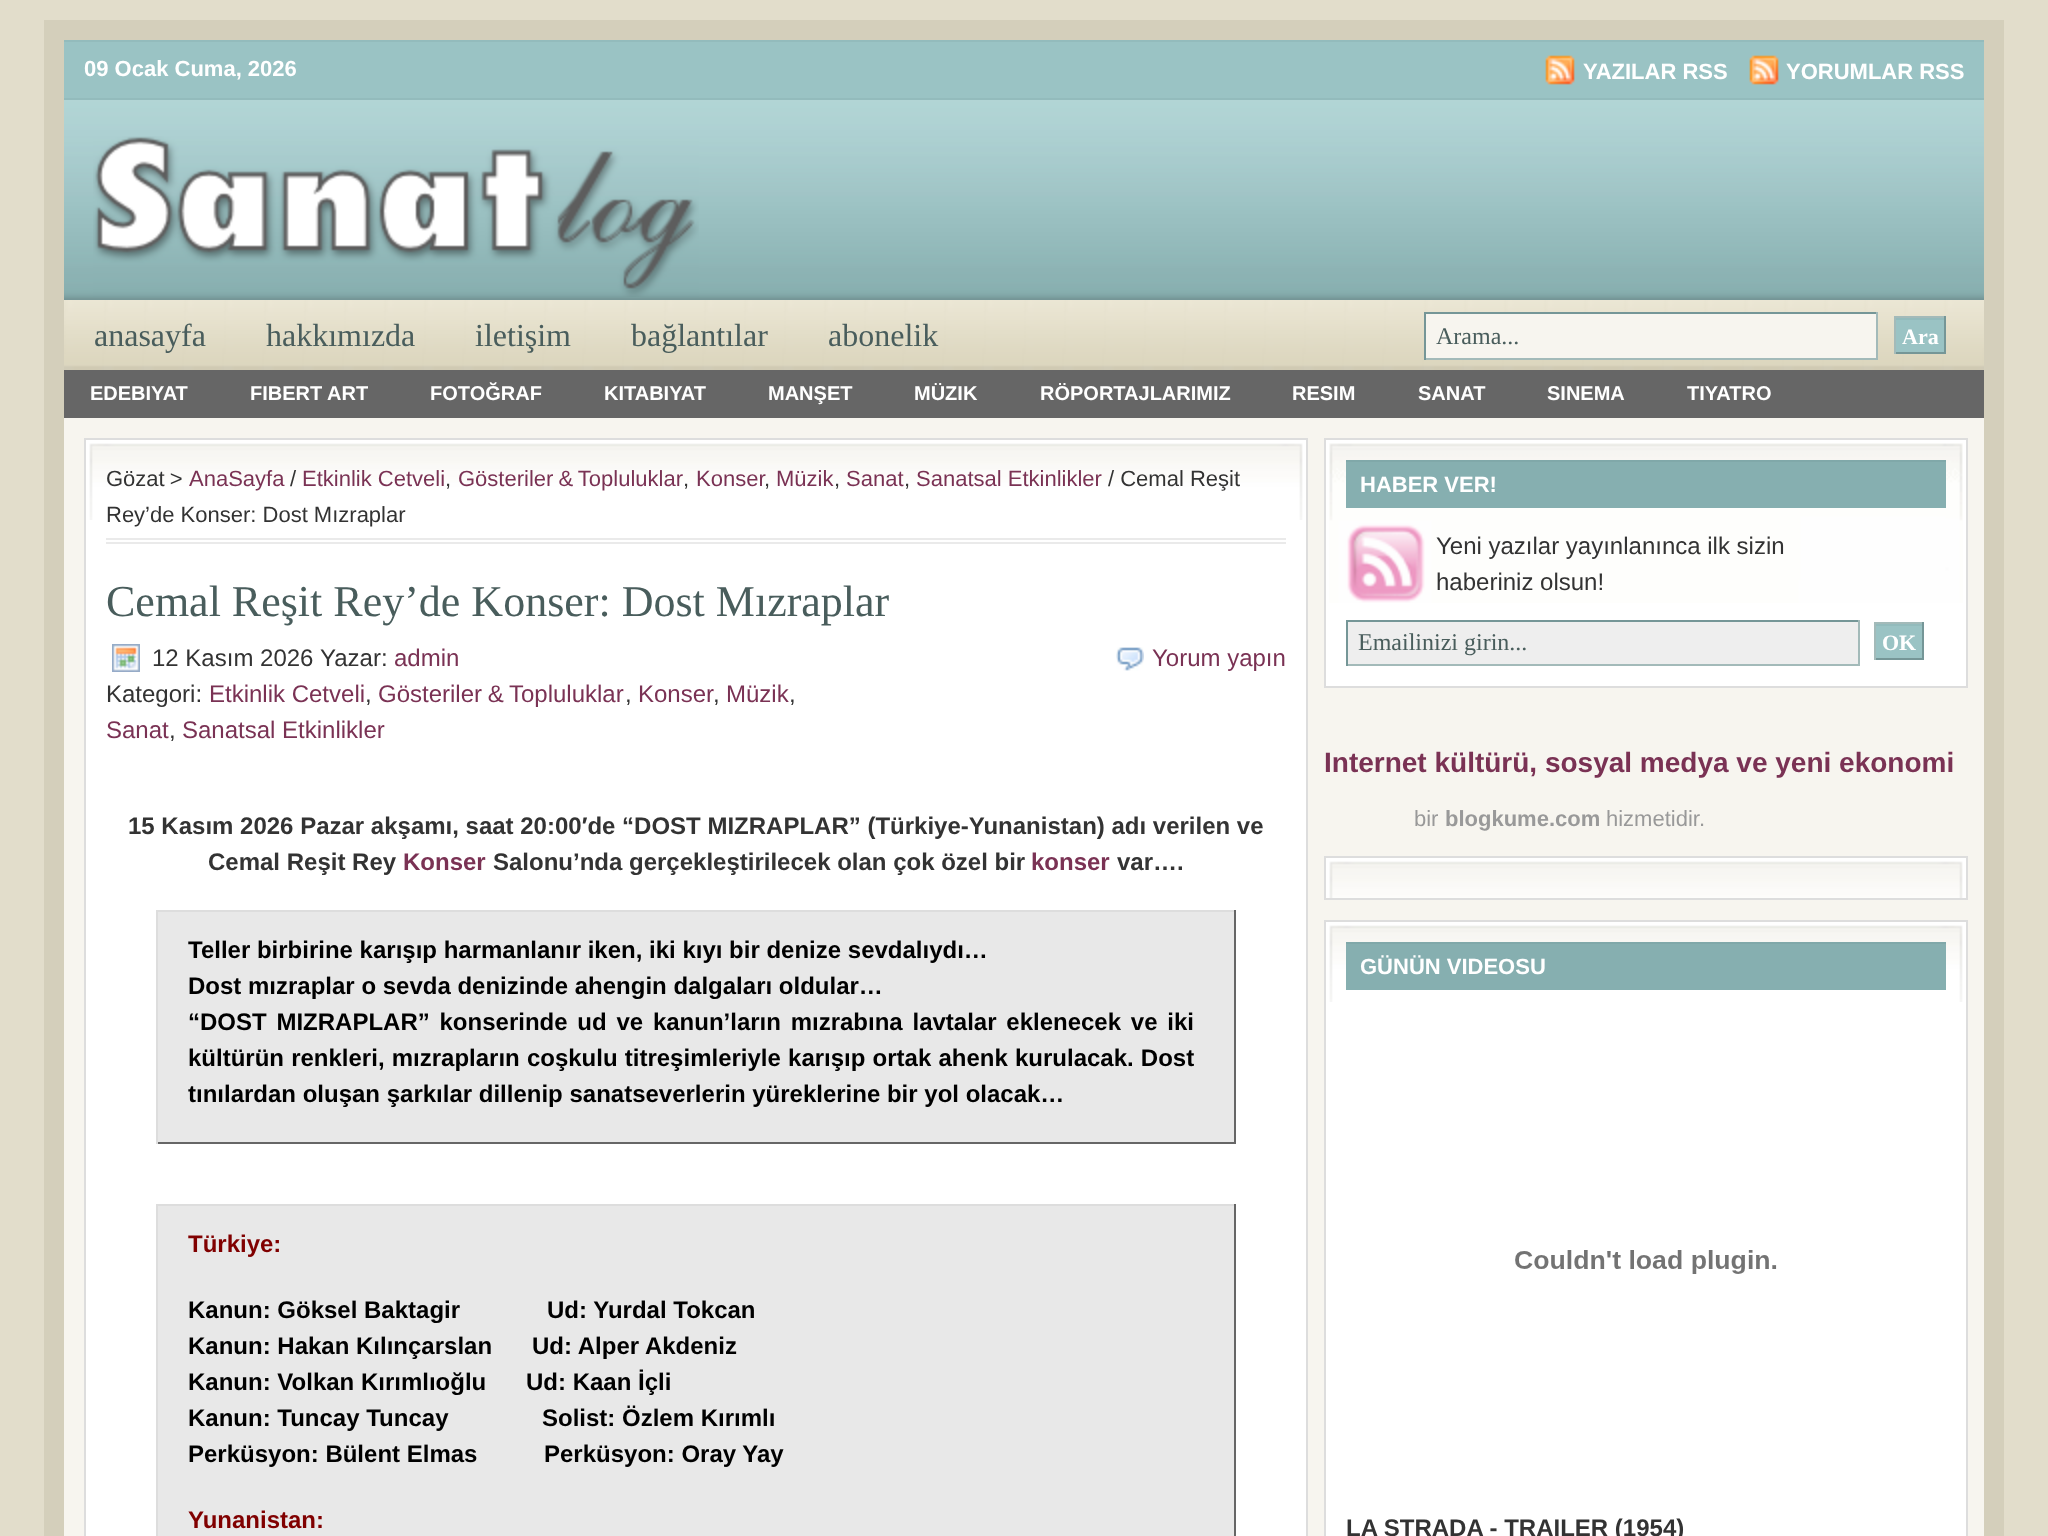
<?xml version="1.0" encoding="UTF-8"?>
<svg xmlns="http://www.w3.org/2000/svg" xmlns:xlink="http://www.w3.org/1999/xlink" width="2048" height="1536">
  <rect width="100%" height="100%" fill="#e2ddcb" />
  <rect x="64" y="418" width="1920" height="1118" fill="#f7f5ef" />
  <rect x="54" y="30" width="1940" height="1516" fill="none" stroke="#d4cfbb" stroke-width="20" />
  <rect x="64" y="40" width="1920" height="60" fill="#93bbbc" />
  <rect x="64" y="42" width="1920" height="56" fill="#9ac3c4" />
  <image x="1545" y="55" width="30" height="30" xlink:href="image1.png" />
  <image x="1749" y="55" width="30" height="30" xlink:href="image1.png" />
  <image x="64" y="100" width="1920" height="200" xlink:href="image2.png" />
  <image x="93" y="136" width="606" height="161" xlink:href="image3.png" />
  <image x="64" y="300" width="1920" height="70" xlink:href="image4.png" />
  <rect x="1426" y="314" width="450" height="44" fill="#f7f5ef" />
  <rect x="1424" y="312" width="454" height="2" fill="#759697" />
  <rect x="1876" y="312" width="2" height="48" fill="#a3bab9" />
  <rect x="1424" y="358" width="454" height="2" fill="#a3bab9" />
  <rect x="1424" y="312" width="2" height="48" fill="#759697" />
  <rect x="1896" y="318" width="48" height="2" fill="#93bbbc" />
  <rect x="1896" y="320" width="48" height="32" fill="#9ac3c4" />
  <rect x="1894" y="316" width="52" height="2" fill="#a3bab9" />
  <rect x="1944" y="316" width="2" height="38" fill="#759697" />
  <rect x="1894" y="352" width="52" height="2" fill="#759697" />
  <rect x="1894" y="316" width="2" height="38" fill="#a3bab9" />
  <rect x="64" y="370" width="1920" height="48" fill="#666666" />
  <rect x="86" y="440" width="1220" height="1096" fill="#ffffff" />
  <image x="89" y="443" width="1214" height="77" xlink:href="image5.png" />
  <rect x="85" y="439" width="1222" height="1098" fill="none" stroke="#dddddd" stroke-width="2" />
  <rect x="106" y="538" width="1180" height="2" fill="#eaeaea" />
  <rect x="106" y="542" width="1180" height="2" fill="#eaeaea" />
  <image x="112" y="644" width="28" height="28" xlink:href="image6.png" />
  <image x="1116" y="647" width="28" height="24" xlink:href="image7.png" />
  <rect x="158" y="912" width="1076" height="230" fill="#e8e8e8" />
  <rect x="156" y="910" width="1080" height="2" fill="#dddddd" />
  <rect x="1234" y="910" width="2" height="234" fill="#666666" />
  <rect x="156" y="1142" width="1080" height="2" fill="#666666" />
  <rect x="156" y="910" width="2" height="234" fill="#dddddd" />
  <rect x="158" y="1206" width="1076" height="330" fill="#e8e8e8" />
  <rect x="156" y="1204" width="1080" height="2" fill="#dddddd" />
  <rect x="1234" y="1204" width="2" height="332" fill="#666666" />
  <rect x="156" y="1204" width="2" height="332" fill="#dddddd" />
  <rect x="1326" y="440" width="640" height="246" fill="#ffffff" />
  <image x="1329" y="443" width="634" height="160" xlink:href="image8.png" />
  <rect x="1325" y="439" width="642" height="248" fill="none" stroke="#dddddd" stroke-width="2" />
  <rect x="1346" y="462" width="600" height="46" fill="#86afb0" />
  <rect x="1346" y="460" width="600" height="2" fill="#80a8a9" />
  <rect x="1348" y="622" width="510" height="42" fill="#eeeeee" />
  <rect x="1346" y="620" width="514" height="2" fill="#759697" />
  <rect x="1858" y="620" width="2" height="46" fill="#a3bab9" />
  <rect x="1346" y="664" width="514" height="2" fill="#a3bab9" />
  <rect x="1346" y="620" width="2" height="46" fill="#759697" />
  <rect x="1876" y="624" width="46" height="2" fill="#93bbbc" />
  <rect x="1876" y="626" width="46" height="32" fill="#9ac3c4" />
  <rect x="1874" y="622" width="50" height="2" fill="#a3bab9" />
  <rect x="1922" y="622" width="2" height="38" fill="#759697" />
  <rect x="1874" y="658" width="50" height="2" fill="#759697" />
  <rect x="1874" y="622" width="2" height="38" fill="#a3bab9" />
  <rect x="1326" y="858" width="640" height="40" fill="#ffffff" />
  <image x="1329" y="861" width="634" height="37" xlink:href="image9.png" />
  <rect x="1325" y="857" width="642" height="42" fill="none" stroke="#dddddd" stroke-width="2" />
  <rect x="1326" y="922" width="640" height="614" fill="#ffffff" />
  <image x="1329" y="925" width="634" height="77" xlink:href="image10.png" />
  <rect x="1325" y="921" width="642" height="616" fill="none" stroke="#dddddd" stroke-width="2" />
  <rect x="1346" y="944" width="600" height="46" fill="#86afb0" />
  <rect x="1346" y="942" width="600" height="2" fill="#80a8a9" />
  <image x="1515" y="1250" width="262" height="24" xlink:href="image11.png" />
  <text x="84" y="76" style="font-family: Liberation Sans; font-size: 22px; font-weight: bold; fill: #ffffff">09 Ocak Cuma, 2026</text>
  <text x="1583" y="79" style="font-family: Liberation Sans; font-size: 22px; font-weight: bold; fill: #ffffff">YAZILAR RSS</text>
  <text x="1786" y="79" style="font-family: Liberation Sans; font-size: 22px; font-weight: bold; fill: #ffffff">YORUMLAR RSS</text>
  <text x="94" y="346" style="font-family: Liberation Serif; font-size: 32px; fill: #495d5c">anasayfa</text>
  <text x="266" y="346" style="font-family: Liberation Serif; font-size: 32px; fill: #495d5c">hakkımızda</text>
  <text x="475" y="346" style="font-family: Liberation Serif; font-size: 32px; fill: #495d5c">iletişim</text>
  <text x="631" y="346" style="font-family: Liberation Serif; font-size: 32px; fill: #495d5c">bağlantılar</text>
  <text x="828" y="346" style="font-family: Liberation Serif; font-size: 32px; fill: #495d5c">abonelik</text>
  <text x="1436" y="344" style="font-family: Liberation Serif; font-size: 24px; fill: #495d5c">Arama...</text>
  <text x="1902" y="344" style="font-family: Liberation Serif; font-size: 22px; font-weight: bold; fill: #ffffff">Ara</text>
  <text x="90" y="400" style="font-family: Liberation Sans; font-size: 20px; font-weight: bold; fill: #ffffff">EDEBIYAT</text>
  <text x="250" y="400" style="font-family: Liberation Sans; font-size: 20px; font-weight: bold; fill: #ffffff">FIBERT ART</text>
  <text x="430" y="400" style="font-family: Liberation Sans; font-size: 20px; font-weight: bold; fill: #ffffff">FOTOĞRAF</text>
  <text x="604" y="400" style="font-family: Liberation Sans; font-size: 20px; font-weight: bold; fill: #ffffff">KITABIYAT</text>
  <text x="768" y="400" style="font-family: Liberation Sans; font-size: 20px; font-weight: bold; fill: #ffffff">MANŞET</text>
  <text x="914" y="400" style="font-family: Liberation Sans; font-size: 20px; font-weight: bold; fill: #ffffff">MÜZIK</text>
  <text x="1040" y="400" style="font-family: Liberation Sans; font-size: 20px; font-weight: bold; fill: #ffffff">RÖPORTAJLARIMIZ</text>
  <text x="1292" y="400" style="font-family: Liberation Sans; font-size: 20px; font-weight: bold; fill: #ffffff">RESIM</text>
  <text x="1418" y="400" style="font-family: Liberation Sans; font-size: 20px; font-weight: bold; fill: #ffffff">SANAT</text>
  <text x="1547" y="400" style="font-family: Liberation Sans; font-size: 20px; font-weight: bold; fill: #ffffff">SINEMA</text>
  <text x="1687" y="400" style="font-family: Liberation Sans; font-size: 20px; font-weight: bold; fill: #ffffff">TIYATRO</text>
  <text x="106" y="486" word-spacing="-1" style="font-family: Liberation Sans; font-size: 22px; fill: #333333">Gözat &gt;</text>
  <text x="189" y="486" style="font-family: Liberation Sans; font-size: 22px; fill: #7a3254">AnaSayfa</text>
  <text x="290" y="486" style="font-family: Liberation Sans; font-size: 22px; fill: #333333">/</text>
  <text x="302" y="486" style="font-family: Liberation Sans; font-size: 22px; fill: #7a3254">Etkinlik Cetveli</text>
  <text x="445" y="486" style="font-family: Liberation Sans; font-size: 22px; fill: #333333">,</text>
  <text x="458" y="486" word-spacing="-1" style="font-family: Liberation Sans; font-size: 22px; fill: #7a3254">Gösteriler &amp; Topluluklar</text>
  <text x="683" y="486" style="font-family: Liberation Sans; font-size: 22px; fill: #333333">,</text>
  <text x="696" y="486" style="font-family: Liberation Sans; font-size: 22px; fill: #7a3254">Konser</text>
  <text x="764" y="486" style="font-family: Liberation Sans; font-size: 22px; fill: #333333">,</text>
  <text x="776" y="486" style="font-family: Liberation Sans; font-size: 22px; fill: #7a3254">Müzik</text>
  <text x="834" y="486" style="font-family: Liberation Sans; font-size: 22px; fill: #333333">,</text>
  <text x="846" y="486" style="font-family: Liberation Sans; font-size: 22px; fill: #7a3254">Sanat</text>
  <text x="904" y="486" style="font-family: Liberation Sans; font-size: 22px; fill: #333333">,</text>
  <text x="916" y="486" style="font-family: Liberation Sans; font-size: 22px; fill: #7a3254">Sanatsal Etkinlikler</text>
  <text x="1108" y="486" style="font-family: Liberation Sans; font-size: 22px; fill: #333333">/ Cemal Reşit</text>
  <text x="106" y="522" style="font-family: Liberation Sans; font-size: 22px; fill: #333333">Rey’de Konser: Dost Mızraplar</text>
  <text x="106" y="616" style="font-family: Liberation Serif; font-size: 44px; fill: #495d5c">Cemal Reşit Rey’de Konser: Dost Mızraplar</text>
  <text x="152" y="666" style="font-family: Liberation Sans; font-size: 24px; fill: #333333">12 Kasım 2026</text>
  <text x="320" y="666" style="font-family: Liberation Sans; font-size: 24px; fill: #333333">Yazar:</text>
  <text x="394" y="666" style="font-family: Liberation Sans; font-size: 24px; fill: #7a3254">admin</text>
  <text x="106" y="702" style="font-family: Liberation Sans; font-size: 24px; fill: #333333">Kategori:</text>
  <text x="209" y="702" style="font-family: Liberation Sans; font-size: 24px; fill: #7a3254">Etkinlik Cetveli</text>
  <text x="365" y="702" style="font-family: Liberation Sans; font-size: 24px; fill: #333333">,</text>
  <text x="378" y="702" word-spacing="-1" style="font-family: Liberation Sans; font-size: 24px; fill: #7a3254">Gösteriler &amp; Topluluklar</text>
  <text x="625" y="702" style="font-family: Liberation Sans; font-size: 24px; fill: #333333">,</text>
  <text x="638" y="702" style="font-family: Liberation Sans; font-size: 24px; fill: #7a3254">Konser</text>
  <text x="713" y="702" style="font-family: Liberation Sans; font-size: 24px; fill: #333333">,</text>
  <text x="726" y="702" style="font-family: Liberation Sans; font-size: 24px; fill: #7a3254">Müzik</text>
  <text x="789" y="702" style="font-family: Liberation Sans; font-size: 24px; fill: #333333">,</text>
  <text x="106" y="738" style="font-family: Liberation Sans; font-size: 24px; fill: #7a3254">Sanat</text>
  <text x="169" y="738" style="font-family: Liberation Sans; font-size: 24px; fill: #333333">,</text>
  <text x="182" y="738" style="font-family: Liberation Sans; font-size: 24px; fill: #7a3254">Sanatsal Etkinlikler</text>
  <text x="1152" y="666" style="font-family: Liberation Sans; font-size: 24px; fill: #7a3254">Yorum yapın</text>
  <text x="128" y="834" style="font-family: Liberation Sans; font-size: 24px; font-weight: bold; fill: #333333">15 Kasım 2026 Pazar akşamı, saat 20:00′de “DOST MIZRAPLAR” (Türkiye-Yunanistan) adı verilen ve</text>
  <text x="208" y="870" style="font-family: Liberation Sans; font-size: 24px; font-weight: bold; fill: #333333">Cemal Reşit Rey</text>
  <text x="403" y="870" style="font-family: Liberation Sans; font-size: 24px; font-weight: bold; fill: #7a3254">Konser</text>
  <text x="493" y="870" style="font-family: Liberation Sans; font-size: 24px; font-weight: bold; fill: #333333">Salonu’nda gerçekleştirilecek olan çok özel bir</text>
  <text x="1031" y="870" style="font-family: Liberation Sans; font-size: 24px; font-weight: bold; fill: #7a3254">konser</text>
  <text x="1117" y="870" style="font-family: Liberation Sans; font-size: 24px; font-weight: bold; fill: #333333">var….</text>
  <text x="188" y="958" style="font-family: Liberation Sans; font-size: 24px; font-weight: bold; fill: #000000">Teller birbirine karışıp harmanlanır iken, iki kıyı bir denize sevdalıydı…</text>
  <text x="188" y="994" style="font-family: Liberation Sans; font-size: 24px; font-weight: bold; fill: #000000">Dost mızraplar o sevda denizinde ahengin dalgaları oldular…</text>
  <text x="188" y="1030" word-spacing="3.1" style="font-family: Liberation Sans; font-size: 24px; font-weight: bold; fill: #000000">“DOST MIZRAPLAR” konserinde ud ve kanun’ların mızrabına lavtalar eklenecek ve iki</text>
  <text x="188" y="1066" word-spacing="0.5" style="font-family: Liberation Sans; font-size: 24px; font-weight: bold; fill: #000000">kültürün renkleri, mızrapların coşkulu titreşimleriyle karışıp ortak ahenk kurulacak. Dost</text>
  <text x="188" y="1102" style="font-family: Liberation Sans; font-size: 24px; font-weight: bold; fill: #000000">tınılardan oluşan şarkılar dillenip sanatseverlerin yüreklerine bir yol olacak…</text>
  <text x="188" y="1252" style="font-family: Liberation Sans; font-size: 24px; font-weight: bold; fill: #800000">Türkiye:</text>
  <text x="188" y="1318" style="font-family: Liberation Sans; font-size: 24px; font-weight: bold; fill: #000000">Kanun: Göksel Baktagir</text>
  <text x="547" y="1318" style="font-family: Liberation Sans; font-size: 24px; font-weight: bold; fill: #000000">Ud: Yurdal Tokcan</text>
  <text x="188" y="1354" style="font-family: Liberation Sans; font-size: 24px; font-weight: bold; fill: #000000">Kanun: Hakan Kılınçarslan</text>
  <text x="532" y="1354" style="font-family: Liberation Sans; font-size: 24px; font-weight: bold; fill: #000000">Ud: Alper Akdeniz</text>
  <text x="188" y="1390" style="font-family: Liberation Sans; font-size: 24px; font-weight: bold; fill: #000000">Kanun: Volkan Kırımlıoğlu</text>
  <text x="526" y="1390" style="font-family: Liberation Sans; font-size: 24px; font-weight: bold; fill: #000000">Ud: Kaan İçli</text>
  <text x="188" y="1426" style="font-family: Liberation Sans; font-size: 24px; font-weight: bold; fill: #000000">Kanun: Tuncay Tuncay</text>
  <text x="542" y="1426" style="font-family: Liberation Sans; font-size: 24px; font-weight: bold; fill: #000000">Solist: Özlem Kırımlı</text>
  <text x="188" y="1462" style="font-family: Liberation Sans; font-size: 24px; font-weight: bold; fill: #000000">Perküsyon: Bülent Elmas</text>
  <text x="544" y="1462" style="font-family: Liberation Sans; font-size: 24px; font-weight: bold; fill: #000000">Perküsyon: Oray Yay</text>
  <text x="188" y="1528" style="font-family: Liberation Sans; font-size: 24px; font-weight: bold; fill: #800000">Yunanistan:</text>
  <text x="1360" y="492" style="font-family: Liberation Sans; font-size: 22px; font-weight: bold; fill: #ffffff">HABER VER!</text>
  <text x="1436" y="554" style="font-family: Liberation Sans; font-size: 24px; fill: #333333">Yeni yazılar yayınlanınca ilk sizin</text>
  <text x="1436" y="590" style="font-family: Liberation Sans; font-size: 24px; fill: #333333">haberiniz olsun!</text>
  <text x="1358" y="650" style="font-family: Liberation Serif; font-size: 24px; fill: #495d5c">Emailinizi girin...</text>
  <text x="1882" y="650" style="font-family: Liberation Serif; font-size: 22px; font-weight: bold; fill: #ffffff">OK</text>
  <text x="1324" y="772" style="font-family: Liberation Sans; font-size: 28px; font-weight: bold; fill: #7a3254">Internet kültürü, sosyal medya ve yeni ekonomi</text>
  <text x="1414" y="826" style="font-family: Liberation Sans; font-size: 22px; fill: #999999">bir</text>
  <text x="1445" y="826" style="font-family: Liberation Sans; font-size: 22px; font-weight: bold; fill: #999999">blogkume.com</text>
  <text x="1606" y="826" style="font-family: Liberation Sans; font-size: 22px; fill: #999999">hizmetidir.</text>
  <text x="1360" y="974" style="font-family: Liberation Sans; font-size: 22px; font-weight: bold; fill: #ffffff">GÜNÜN VIDEOSU</text>
  <text x="1346" y="1536" style="font-family: Liberation Sans; font-size: 24px; font-weight: bold; fill: #333333">LA STRADA - TRAILER (1954)</text>
</svg>
